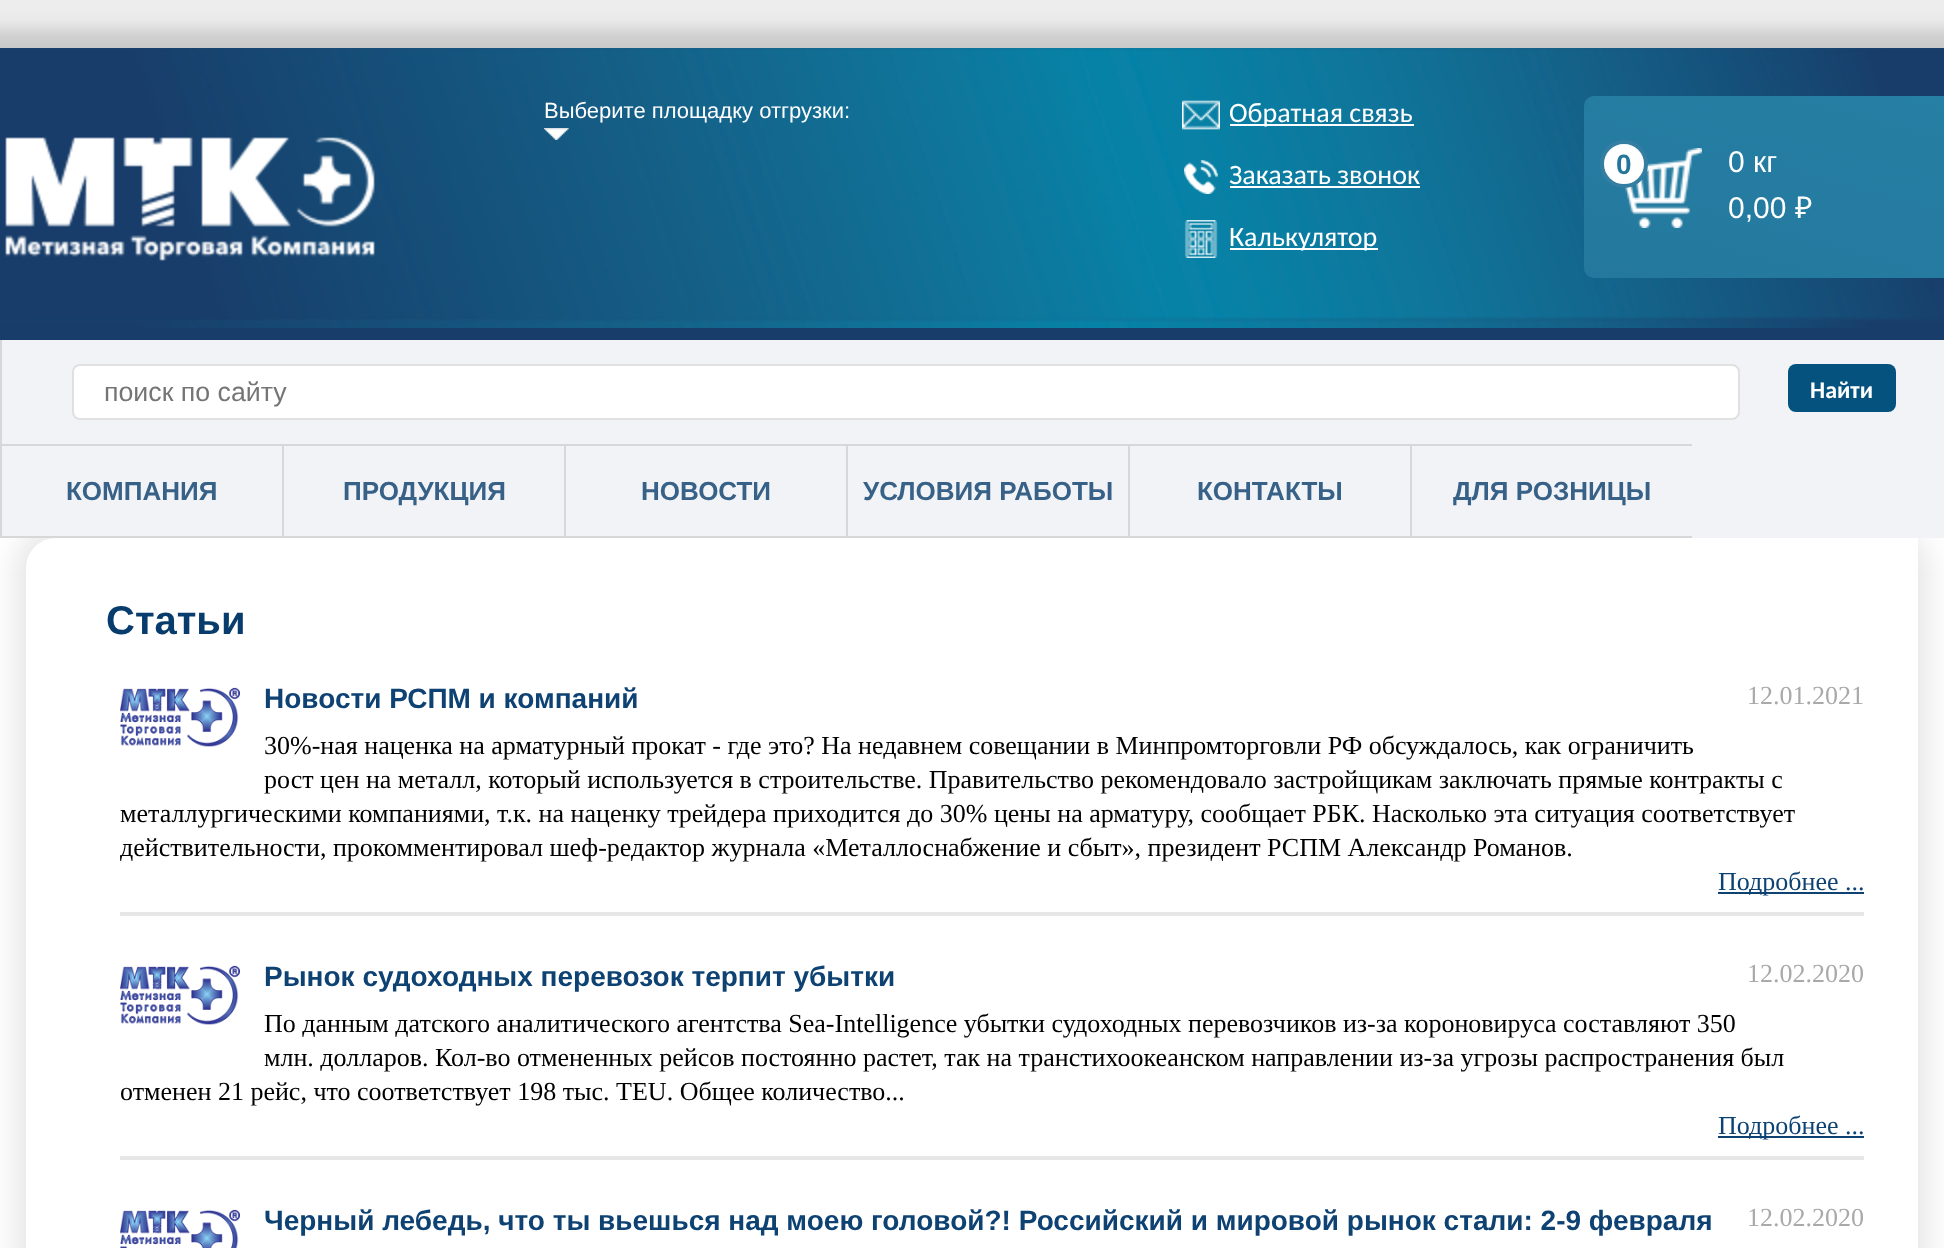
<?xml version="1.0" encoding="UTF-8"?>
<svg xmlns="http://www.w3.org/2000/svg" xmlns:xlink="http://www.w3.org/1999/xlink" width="1944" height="1248">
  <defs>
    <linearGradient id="g1" gradientUnits="userSpaceOnUse" x1="1820" y1="52" x2="1748" y2="322"><stop offset="0" stop-color="#267fa4" /><stop offset="1" stop-color="#24789e" /></linearGradient>
  </defs>
  <rect width="100%" height="100%" fill="#ffffff" />
  <image x="0" y="0" width="1944" height="48" xlink:href="image1.png" />
  <image x="0" y="48" width="1944" height="292" xlink:href="image2.png" />
  <image x="0" y="48" width="1944" height="280" xlink:href="image3.png" />
  <image x="5" y="137" width="370" height="124" xlink:href="image4.png" />
  <image x="544" y="128" width="25" height="12" xlink:href="image5.png" />
  <image x="1182" y="100" width="38" height="30" xlink:href="image6.png" />
  <rect x="1230" y="124" width="184" height="2" fill="#ffffff" />
  <image x="1184" y="160" width="34" height="34" xlink:href="image7.png" />
  <rect x="1230" y="186" width="190" height="2" fill="#ffffff" />
  <image x="1184" y="220" width="34" height="38" xlink:href="image8.png" />
  <rect x="1230" y="248" width="148" height="2" fill="#ffffff" />
  <rect x="1584" y="96" width="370" height="182" rx="10" fill="url(#g1)" />
  <image x="1625" y="148" width="77" height="80" xlink:href="image9.png" />
  <circle cx="1624" cy="164" r="22" fill="#ffffff" stroke="#347ea1" stroke-width="4" />
  <rect x="2" y="340" width="1942" height="104" fill="#f2f3f7" />
  <rect y="340" width="2" height="104" fill="#d6d7d9" />
  <rect x="73" y="365" width="1666" height="54" rx="7" fill="#ffffff" stroke="#e0e0e0" stroke-width="2" />
  <rect x="1788" y="364" width="108" height="48" rx="8" fill="#05527e" />
  <rect x="16" y="528" width="1912" height="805" rx="40" fill="#000000" fill-opacity="0.1" filter="blur(15px)" />
  <rect x="2" y="444" width="1942" height="94" fill="#f2f3f7" />
  <rect y="444" width="1692" height="2" fill="#d6d7d9" />
  <rect y="536" width="1692" height="2" fill="#d6d7d9" />
  <rect y="444" width="2" height="94" fill="#d6d7d9" />
  <rect x="282" y="444" width="2" height="94" fill="#d6d7d9" />
  <rect x="564" y="444" width="2" height="94" fill="#d6d7d9" />
  <rect x="846" y="444" width="2" height="94" fill="#d6d7d9" />
  <rect x="1128" y="444" width="2" height="94" fill="#d6d7d9" />
  <rect x="1410" y="444" width="2" height="94" fill="#d6d7d9" />
  <path d="M 56 538 h 1862 v 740 h -1892 v -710 c 0 -16.5 13.5 -30 30 -30 z" fill="#ffffff" />
  <image x="120" y="687" width="120" height="60" xlink:href="image10.png" />
  <rect x="1718" y="892" width="146" height="2" fill="#0e4273" />
  <rect x="120" y="912" width="1744" height="4" fill="#e7e7e7" />
  <image x="120" y="965" width="120" height="60" xlink:href="image10.png" />
  <rect x="1718" y="1136" width="146" height="2" fill="#0e4273" />
  <rect x="120" y="1156" width="1744" height="4" fill="#e7e7e7" />
  <image x="120" y="1209" width="120" height="39" xlink:href="image11.png" />
  <text x="544" y="118" style="font-family: Liberation Sans; font-size: 22px; fill: #ffffff">Выберите площадку отгрузки:</text>
  <text x="1229" y="122" style="font-family: Carlito; font-size: 28px; fill: #ffffff">Обратная связь</text>
  <text x="1229" y="184" style="font-family: Carlito; font-size: 28px; fill: #ffffff">Заказать звонок</text>
  <text x="1229" y="246" style="font-family: Carlito; font-size: 28px; fill: #ffffff">Калькулятор</text>
  <text x="1616" y="174" style="font-family: Liberation Sans; font-size: 28px; font-weight: bold; fill: #24769b">0</text>
  <text x="1728" y="172" style="font-family: Liberation Sans; font-size: 30px; fill: #ffffff">0 кг</text>
  <text x="1728" y="218" style="font-family: Liberation Sans; font-size: 30px; fill: #ffffff">0,00</text>
  <text x="1795" y="218" style="font-family: Noto Sans; font-size: 30px; fill: #ffffff">₽</text>
  <text x="104" y="401" style="font-family: Liberation Sans; font-size: 26.75px; fill: #757575">поиск по сайту</text>
  <text x="1810" y="398" style="font-family: Carlito; font-size: 24px; font-weight: bold; fill: #ffffff">Найти</text>
  <text x="66" y="500" style="font-family: Liberation Sans; font-size: 26px; font-weight: bold; fill: #376187">КОМПАНИЯ</text>
  <text x="343" y="500" style="font-family: Liberation Sans; font-size: 26px; font-weight: bold; fill: #376187">ПРОДУКЦИЯ</text>
  <text x="641" y="500" style="font-family: Liberation Sans; font-size: 26px; font-weight: bold; fill: #376187">НОВОСТИ</text>
  <text x="863" y="500" style="font-family: Liberation Sans; font-size: 26px; font-weight: bold; fill: #376187">УСЛОВИЯ РАБОТЫ</text>
  <text x="1197" y="500" style="font-family: Liberation Sans; font-size: 26px; font-weight: bold; fill: #376187">КОНТАКТЫ</text>
  <text x="1453" y="500" style="font-family: Liberation Sans; font-size: 26px; font-weight: bold; fill: #376187">ДЛЯ РОЗНИЦЫ</text>
  <text x="106" y="634" style="font-family: Liberation Sans; font-size: 40px; font-weight: bold; fill: #083c6c">Статьи</text>
  <text x="264" y="708" style="font-family: Liberation Sans; font-size: 28px; font-weight: bold; fill: #0e4273">Новости РСПМ и компаний</text>
  <text x="1747" y="704" style="font-family: Liberation Serif; font-size: 26px; fill: #a9a9a9">12.01.2021</text>
  <text x="264" y="754" style="font-family: Liberation Serif; font-size: 26px; fill: #000000">30%-ная наценка на арматурный прокат - где это? На недавнем совещании в Минпромторговли РФ обсуждалось, как ограничить</text>
  <text x="264" y="788" style="font-family: Liberation Serif; font-size: 26px; fill: #000000">рост цен на металл, который используется в строительстве. Правительство рекомендовало застройщикам заключать прямые контракты с</text>
  <text x="120" y="822" style="font-family: Liberation Serif; font-size: 26px; fill: #000000">металлургическими компаниями, т.к. на наценку трейдера приходится до 30% цены на арматуру, сообщает РБК. Насколько эта ситуация соответствует</text>
  <text x="120" y="856" style="font-family: Liberation Serif; font-size: 26px; fill: #000000">действительности, прокомментировал шеф-редактор журнала «Металлоснабжение и сбыт», президент РСПМ Александр Романов.</text>
  <text x="1718" y="890" style="font-family: Liberation Serif; font-size: 26px; fill: #0e4273">Подробнее ...</text>
  <text x="264" y="986" style="font-family: Liberation Sans; font-size: 28px; font-weight: bold; fill: #0e4273">Рынок судоходных перевозок терпит убытки</text>
  <text x="1747" y="982" style="font-family: Liberation Serif; font-size: 26px; fill: #a9a9a9">12.02.2020</text>
  <text x="264" y="1032" style="font-family: Liberation Serif; font-size: 26px; fill: #000000">По данным датского аналитического агентства Sea-Intelligence убытки судоходных перевозчиков из-за короновируса составляют 350</text>
  <text x="264" y="1066" style="font-family: Liberation Serif; font-size: 26px; fill: #000000">млн. долларов. Кол-во отмененных рейсов постоянно растет, так на транстихоокеанском направлении из-за угрозы распространения был</text>
  <text x="120" y="1100" style="font-family: Liberation Serif; font-size: 26px; fill: #000000">отменен 21 рейс, что соответствует 198 тыс. ТEU. Общее количество...</text>
  <text x="1718" y="1134" style="font-family: Liberation Serif; font-size: 26px; fill: #0e4273">Подробнее ...</text>
  <text x="264" y="1230" style="font-family: Liberation Sans; font-size: 28px; font-weight: bold; fill: #0e4273">Черный лебедь, что ты вьешься над моею головой?! Российский и мировой рынок стали: 2-9 февраля</text>
  <text x="1747" y="1226" style="font-family: Liberation Serif; font-size: 26px; fill: #a9a9a9">12.02.2020</text>
</svg>
